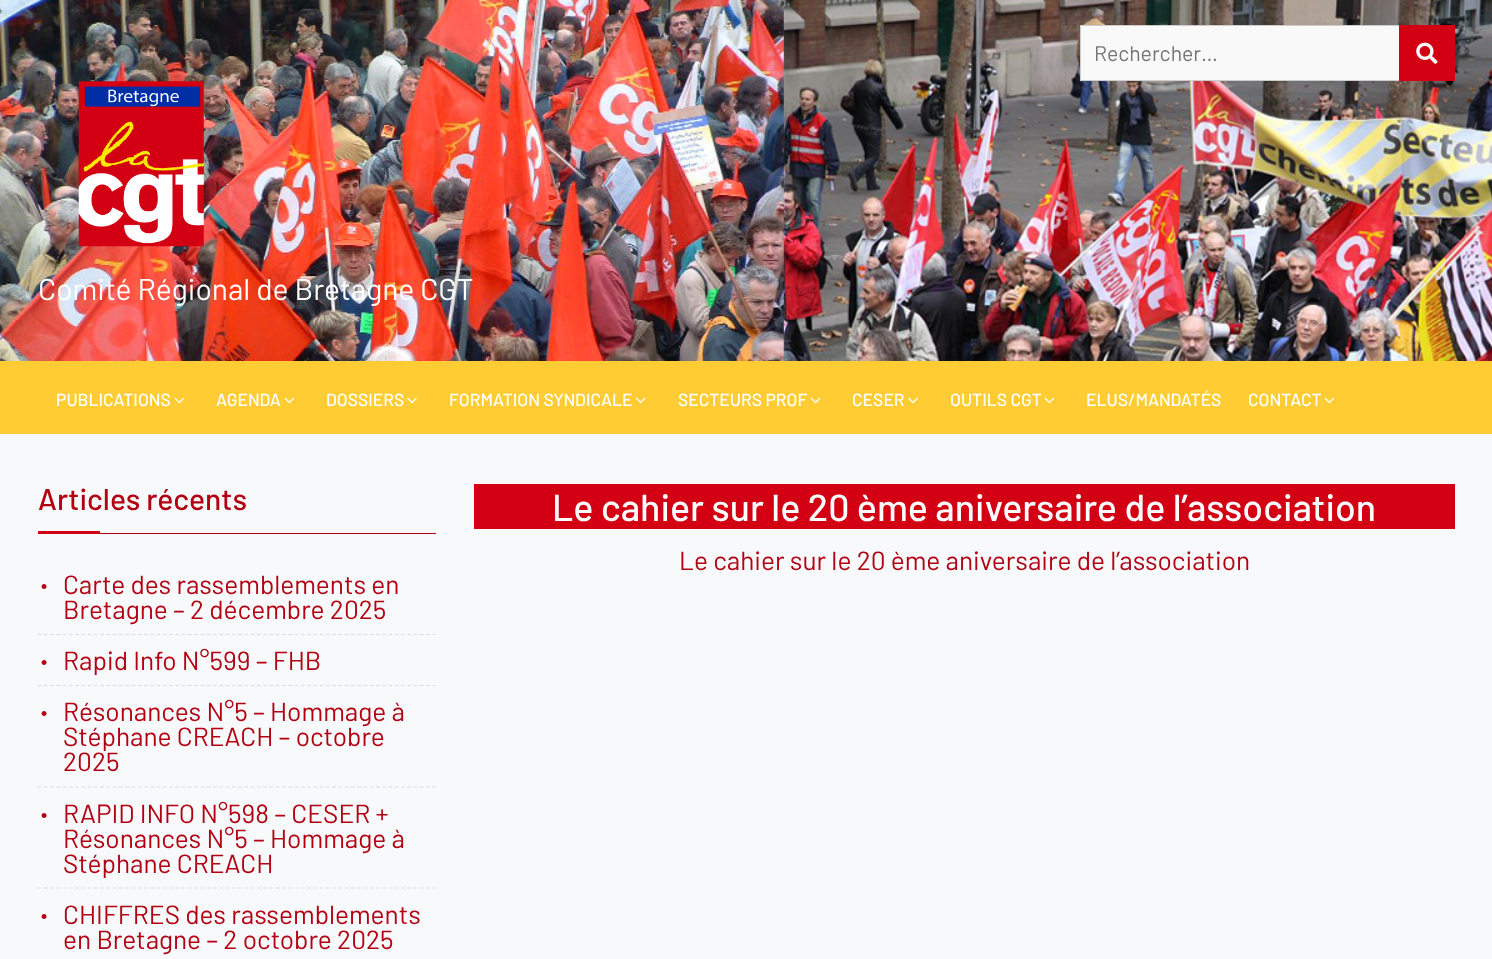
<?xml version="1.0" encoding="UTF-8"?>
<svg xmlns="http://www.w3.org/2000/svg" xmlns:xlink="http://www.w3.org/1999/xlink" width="1492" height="959">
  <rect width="100%" height="100%" fill="#f8f9fa" />
  <image x="0" y="0" width="1492" height="361" xlink:href="image1.png" />
  <rect x="1081" y="26" width="318" height="54" fill="#f9f9f9" />
  <rect x="1080.5" y="25.5" width="374" height="55" fill="none" stroke="#cccccc" />
  <rect x="1399" y="25" width="56" height="56" fill="#d20012" />
  <image x="1416" y="42" width="22" height="22" xlink:href="image2.png" />
  <image x="78" y="81" width="126" height="166" xlink:href="image3.png" />
  <rect y="361" width="1492" height="73" fill="#ffcc33" />
  <image x="174" y="397" width="11" height="7" xlink:href="image4.png" />
  <image x="284" y="397" width="11" height="7" xlink:href="image4.png" />
  <image x="407" y="397" width="10" height="7" xlink:href="image5.png" />
  <image x="635" y="397" width="11" height="7" xlink:href="image6.png" />
  <image x="810" y="397" width="11" height="7" xlink:href="image6.png" />
  <image x="908" y="397" width="10" height="7" xlink:href="image7.png" />
  <image x="1044" y="397" width="11" height="7" xlink:href="image4.png" />
  <image x="1324" y="397" width="11" height="7" xlink:href="image4.png" />
  <rect x="100" y="533" width="336" height="1" fill="#b20012" />
  <rect x="38" y="531" width="62" height="3" fill="#d20012" />
  <path d="M 37.5 634.5 h 398.5" fill="none" stroke="#dddddd" stroke-width="1.2" stroke-dasharray="3.75 2.52" />
  <path d="M 37.5 685.5 h 398.5" fill="none" stroke="#dddddd" stroke-width="1.2" stroke-dasharray="3.75 2.52" />
  <path d="M 37.5 787 h 398.5" fill="none" stroke="#dddddd" stroke-width="1.2" stroke-dasharray="3.75 2.52" />
  <path d="M 37.5 888 h 398.5" fill="none" stroke="#dddddd" stroke-width="1.2" stroke-dasharray="3.75 2.52" />
  <rect x="474" y="484" width="981" height="45" fill="#d20012" />
  <text x="1094" y="61" style="font-family: Barlow; font-size: 21.25px; fill: #757575">Rechercher…</text>
  <text x="38" y="300" style="font-family: Barlow; font-size: 30px; fill: #ffffff">Comité Régional de Bretagne CGT</text>
  <text x="56" y="406" style="font-family: Barlow; font-size: 17.5px; font-weight: 500; fill: #ffffff">PUBLICATIONS</text>
  <text x="216" y="406" style="font-family: Barlow; font-size: 17.5px; font-weight: 500; fill: #ffffff">AGENDA</text>
  <text x="326" y="406" style="font-family: Barlow; font-size: 17.5px; font-weight: 500; fill: #ffffff">DOSSIERS</text>
  <text x="449" y="406" style="font-family: Barlow; font-size: 17.5px; font-weight: 500; fill: #ffffff">FORMATION SYNDICALE</text>
  <text x="678" y="406" style="font-family: Barlow; font-size: 17.5px; font-weight: 500; fill: #ffffff">SECTEURS PROF</text>
  <text x="852" y="406" style="font-family: Barlow; font-size: 17.5px; font-weight: 500; fill: #ffffff">CESER</text>
  <text x="950" y="406" style="font-family: Barlow; font-size: 17.5px; font-weight: 500; fill: #ffffff">OUTILS CGT</text>
  <text x="1086" y="406" style="font-family: Barlow; font-size: 17.5px; font-weight: 500; fill: #ffffff">ELUS/MANDATÉS</text>
  <text x="1248" y="406" style="font-family: Barlow; font-size: 17.5px; font-weight: 500; fill: #ffffff">CONTACT</text>
  <text x="38" y="510" style="font-family: Barlow; font-size: 30px; font-weight: 500; fill: #b20012">Articles récents</text>
  <text x="38" y="589" style="font-family: Barlow; font-size: 44px; fill: #b20012">.</text>
  <text x="63" y="594" style="font-family: Barlow; font-size: 26.25px; fill: #b20012">Carte des rassemblements en</text>
  <text x="63" y="619" style="font-family: Barlow; font-size: 26.25px; fill: #b20012">Bretagne – 2 décembre 2025</text>
  <text x="38" y="665" style="font-family: Barlow; font-size: 44px; fill: #b20012">.</text>
  <text x="63" y="670" style="font-family: Barlow; font-size: 26.25px; fill: #b20012">Rapid Info N°599 – FHB</text>
  <text x="38" y="716" style="font-family: Barlow; font-size: 44px; fill: #b20012">.</text>
  <text x="63" y="721" style="font-family: Barlow; font-size: 26.25px; fill: #b20012">Résonances N°5 – Hommage à</text>
  <text x="63" y="746" style="font-family: Barlow; font-size: 26.25px; fill: #b20012">Stéphane CREACH – octobre</text>
  <text x="63" y="771" style="font-family: Barlow; font-size: 26.25px; fill: #b20012">2025</text>
  <text x="38" y="818" style="font-family: Barlow; font-size: 44px; fill: #b20012">.</text>
  <text x="63" y="823" style="font-family: Barlow; font-size: 26.25px; fill: #b20012">RAPID INFO N°598 – CESER +</text>
  <text x="63" y="848" style="font-family: Barlow; font-size: 26.25px; fill: #b20012">Résonances N°5 – Hommage à</text>
  <text x="63" y="873" style="font-family: Barlow; font-size: 26.25px; fill: #b20012">Stéphane CREACH</text>
  <text x="38" y="919" style="font-family: Barlow; font-size: 44px; fill: #b20012">.</text>
  <text x="63" y="924" style="font-family: Barlow; font-size: 26.25px; fill: #b20012">CHIFFRES des rassemblements</text>
  <text x="63" y="949" style="font-family: Barlow; font-size: 26.25px; fill: #b20012">en Bretagne – 2 octobre 2025</text>
  <text x="552" y="521" style="font-family: Barlow; font-size: 37.5px; font-weight: 500; fill: #ffffff">Le cahier sur le 20 ème aniversaire de l’association</text>
  <text x="679" y="570" style="font-family: Barlow; font-size: 26.25px; fill: #b20012">Le cahier sur le 20 ème aniversaire de l’association</text>
</svg>
